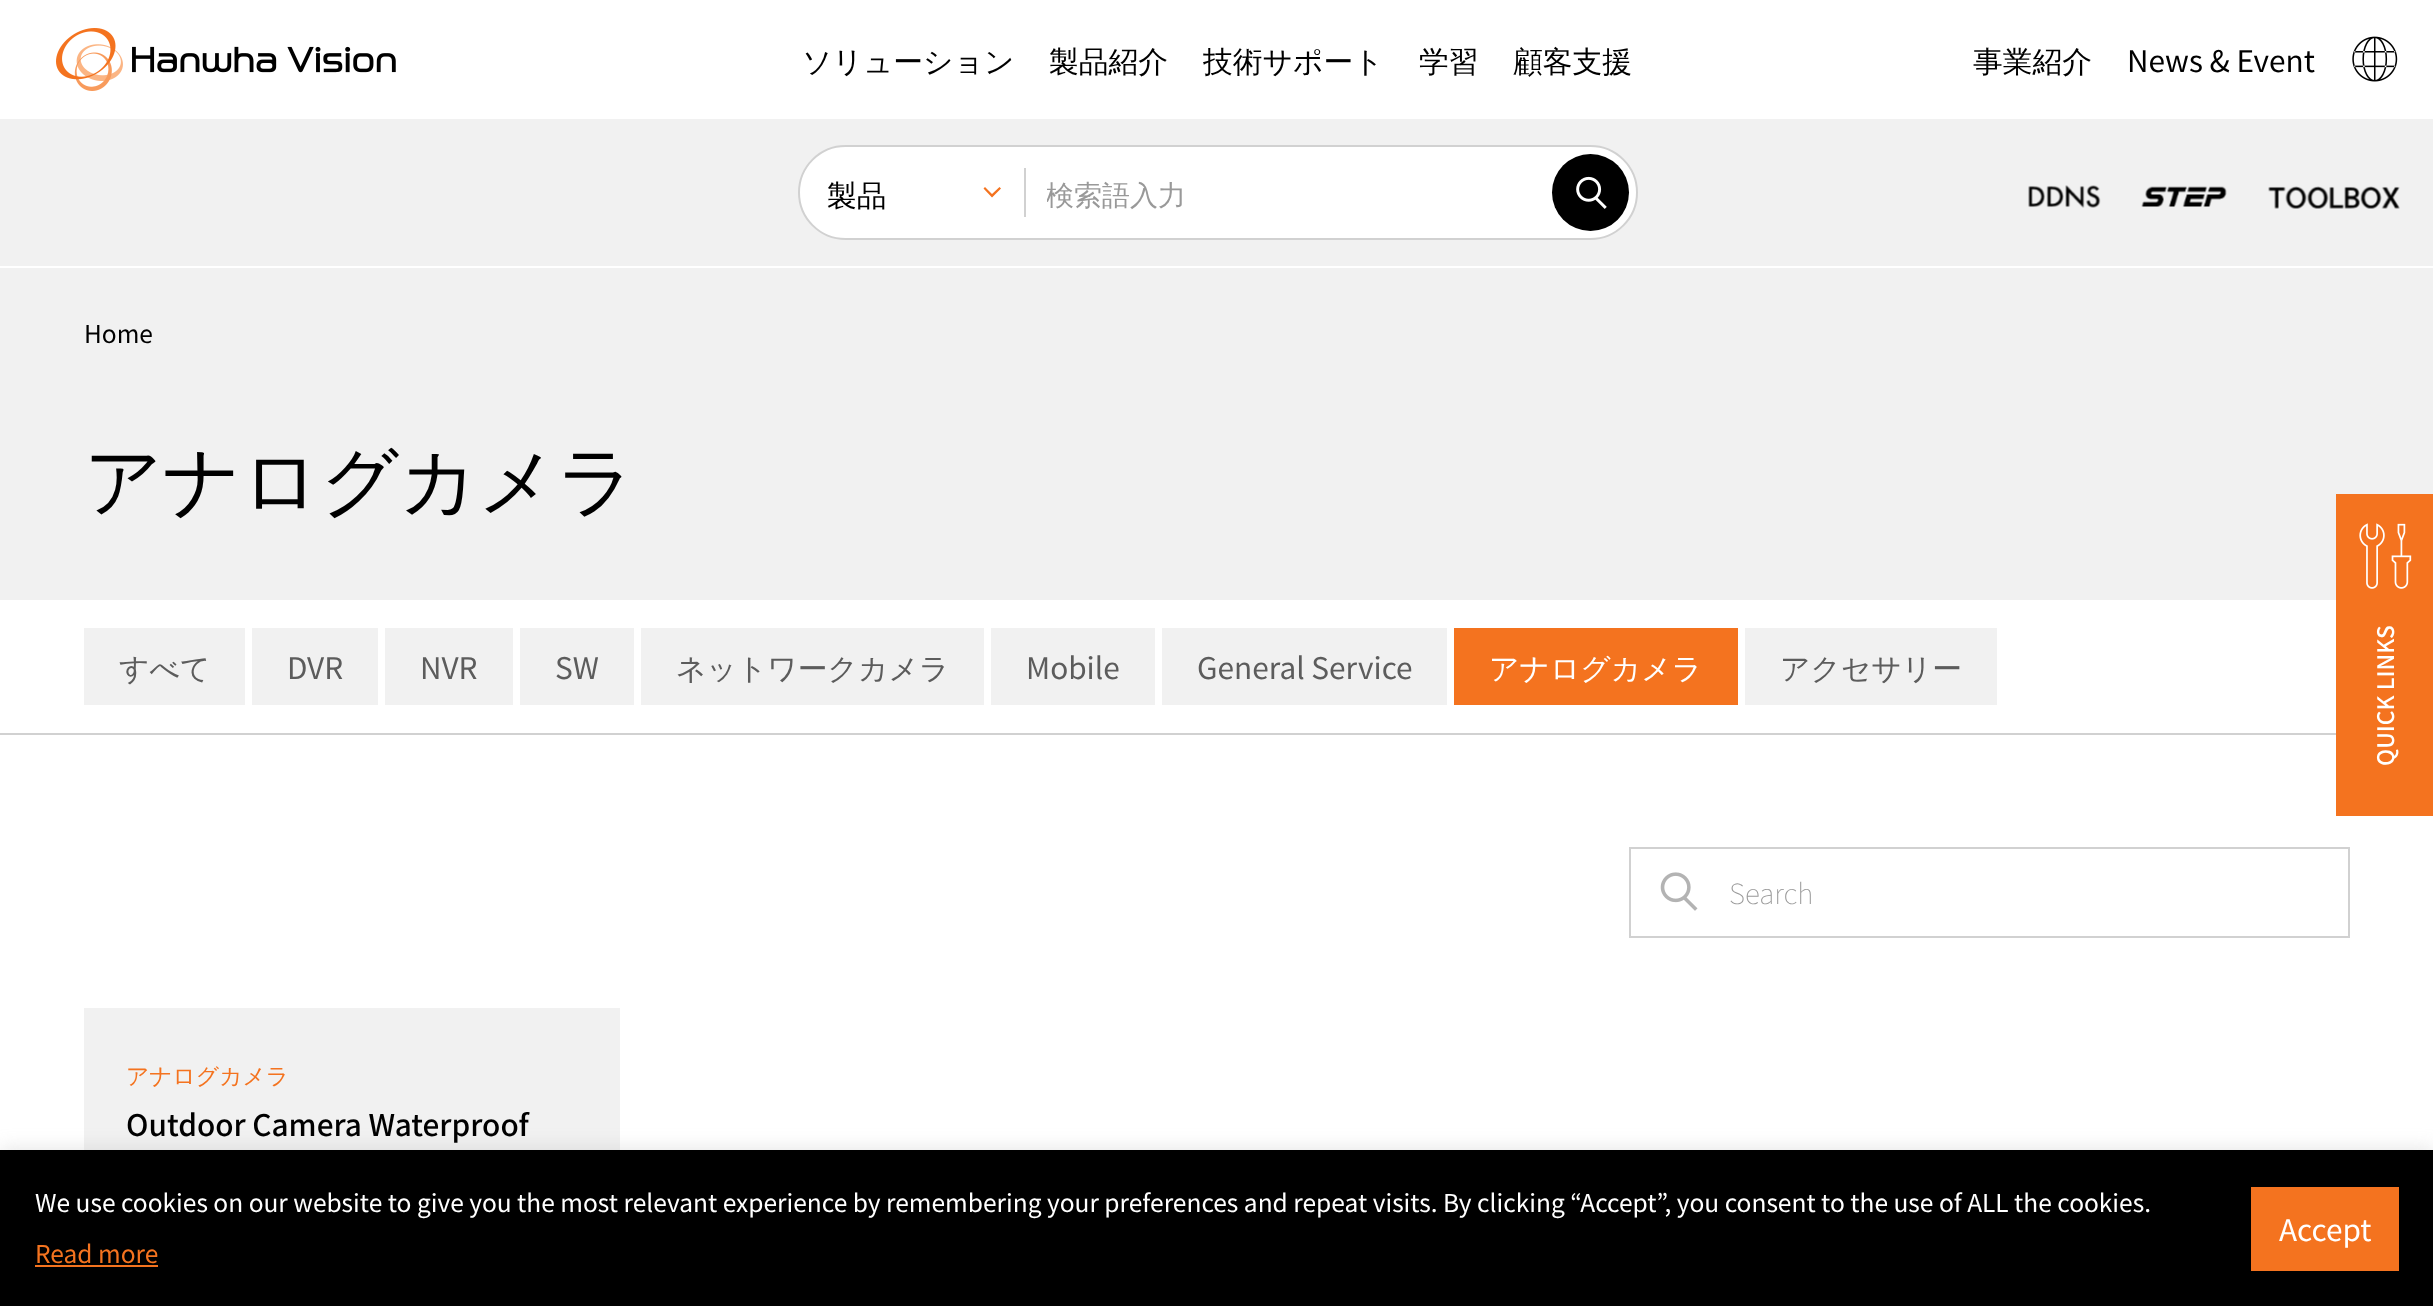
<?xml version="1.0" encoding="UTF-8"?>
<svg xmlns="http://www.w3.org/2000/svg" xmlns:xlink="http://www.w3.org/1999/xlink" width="2433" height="1306">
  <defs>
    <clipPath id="clip1"><rect x="1047" y="172" width="428" height="43" /></clipPath>
  </defs>
  <rect width="100%" height="100%" fill="#ffffff" />
  <image x="56" y="28" width="340" height="63" xlink:href="image1.png" />
  <image x="2352" y="36" width="46" height="46" xlink:href="image2.png" />
  <rect y="119" width="2433" height="147" fill="#f1f1f1" />
  <rect x="799" y="146" width="838" height="93" rx="46.5" fill="#ffffff" stroke="#d1d1d1" stroke-width="2" />
  <path d="M 992 194 l 7.5 -7 l 1.5 1.5 l -9 9 l -8.5 -9 l 1.5 -1.5 z" fill="#f4731f" />
  <rect x="1024" y="168" width="2" height="49" fill="#d1d1d1" />
  <circle cx="1590.5" cy="192.5" r="38.5" fill="#000000" />
  <image x="1576" y="176" width="31" height="33" xlink:href="image3.png" />
  <image x="2028" y="185" width="73" height="23" xlink:href="image4.png" />
  <image x="2141" y="186" width="86" height="21" xlink:href="image5.png" />
  <image x="2268" y="186" width="132" height="23" xlink:href="image6.png" />
  <rect y="268" width="2433" height="332" fill="#f1f1f1" />
  <rect y="733" width="2336" height="2" fill="#d1d1d1" />
  <rect x="84" y="628" width="161" height="77" fill="#f1f1f1" />
  <rect x="252" y="628" width="126" height="77" fill="#f1f1f1" />
  <rect x="385" y="628" width="128" height="77" fill="#f1f1f1" />
  <rect x="520" y="628" width="114" height="77" fill="#f1f1f1" />
  <rect x="641" y="628" width="343" height="77" fill="#f1f1f1" />
  <rect x="991" y="628" width="164" height="77" fill="#f1f1f1" />
  <rect x="1162" y="628" width="285" height="77" fill="#f1f1f1" />
  <rect x="1454" y="628" width="284" height="77" fill="#f4731f" />
  <rect x="1745" y="628" width="252" height="77" fill="#f1f1f1" />
  <rect x="1630" y="848" width="719" height="89" fill="none" stroke="#d1d1d1" stroke-width="2" />
  <image x="1660" y="872" width="38" height="39" xlink:href="image7.png" />
  <rect x="84" y="1008" width="536" height="142" fill="#f1f1f1" />
  <rect x="2336" y="494" width="97" height="322" fill="#f4731f" />
  <image x="2359" y="523" width="53" height="66" xlink:href="image8.png" />
  <rect y="1148" width="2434" height="158" fill="#acabab" fill-opacity="0.3" filter="blur(9px)" />
  <rect y="1150" width="2433" height="156" fill="#000000" />
  <rect x="35" y="1265" width="123" height="2" fill="#f4731f" />
  <rect x="2251" y="1187" width="148" height="84" fill="#f4731f" />
  <text x="802" y="72" style="font-family: WenQuanYi Zen Hei; font-size: 29.75px; font-weight: 500; fill: #000000">ソリューション</text>
  <text x="1049" y="72" style="font-family: WenQuanYi Zen Hei; font-size: 29.75px; font-weight: 500; fill: #000000">製品紹介</text>
  <text x="1203" y="72" style="font-family: WenQuanYi Zen Hei; font-size: 29.75px; font-weight: 500; fill: #000000">技術サポート</text>
  <text x="1419" y="72" style="font-family: WenQuanYi Zen Hei; font-size: 29.75px; font-weight: 500; fill: #000000">学習</text>
  <text x="1513" y="72" style="font-family: WenQuanYi Zen Hei; font-size: 29.75px; font-weight: 500; fill: #000000">顧客支援</text>
  <text x="1973" y="72" style="font-family: WenQuanYi Zen Hei; font-size: 29.75px; font-weight: 500; fill: #000000">事業紹介</text>
  <text x="2127" y="72" style="font-family: Noto Sans KR; font-size: 29.75px; fill: #000000">News &amp; Event</text>
  <text x="827" y="206" style="font-family: WenQuanYi Zen Hei; font-size: 29.75px; font-weight: 500; fill: #000000">製品</text>
  <g clip-path="url(#clip1)">
    <text x="1046" y="205" style="font-family: WenQuanYi Zen Hei; font-size: 28px; font-weight: 500; fill: #999999">検索語入力</text>
  </g>
  <text x="84" y="343" style="font-family: Noto Sans KR; font-size: 24.5px; fill: #000000">Home</text>
  <text x="84" y="508" style="font-family: WenQuanYi Zen Hei; font-size: 77px; font-weight: 500; fill: #000000">アナログカメラ</text>
  <text x="119" y="679" style="font-family: WenQuanYi Zen Hei; font-size: 29.75px; font-weight: 500; fill: #5c5c5c">すべて</text>
  <text x="287" y="679" style="font-family: Noto Sans KR; font-size: 29.75px; fill: #5c5c5c">DVR</text>
  <text x="420" y="679" style="font-family: Noto Sans KR; font-size: 29.75px; fill: #5c5c5c">NVR</text>
  <text x="555" y="679" style="font-family: Noto Sans KR; font-size: 29.75px; fill: #5c5c5c">SW</text>
  <text x="676" y="679" style="font-family: WenQuanYi Zen Hei; font-size: 29.75px; font-weight: 500; fill: #5c5c5c">ネットワークカメラ</text>
  <text x="1026" y="679" style="font-family: Noto Sans KR; font-size: 29.75px; fill: #5c5c5c">Mobile</text>
  <text x="1197" y="679" style="font-family: Noto Sans KR; font-size: 29.75px; fill: #5c5c5c">General Service</text>
  <text x="1489" y="679" style="font-family: WenQuanYi Zen Hei; font-size: 29.75px; font-weight: 500; fill: #ffffff">アナログカメラ</text>
  <text x="1780" y="679" style="font-family: WenQuanYi Zen Hei; font-size: 29.75px; font-weight: 500; fill: #5c5c5c">アクセサリー</text>
  <text x="1729" y="904" style="font-family: Noto Sans KR; font-size: 28px; font-weight: 100; fill: #999999">Search</text>
  <text x="126" y="1084" style="font-family: WenQuanYi Zen Hei; font-size: 22.75px; font-weight: 500; fill: #f4731f">アナログカメラ</text>
  <text x="126" y="1136" style="font-family: Noto Sans KR; font-size: 29.75px; font-weight: 500; fill: #000000">Outdoor Camera Waterproof</text>
  <text x="2394" y="766" transform="rotate(-90 2394 766)" style="font-family: Noto Sans KR; font-size: 22.75px; font-weight: 500; fill: #ffffff">QUICK LINKS</text>
  <text x="35" y="1212" style="font-family: Noto Sans KR; font-size: 24.5px; fill: #ffffff">We use cookies on our website to give you the most relevant experience by remembering your preferences and repeat visits. By clicking “Accept”, you consent to the use of ALL the cookies.</text>
  <text x="35" y="1263" style="font-family: Noto Sans KR; font-size: 24.5px; fill: #f4731f">Read more</text>
  <text x="2279" y="1241" style="font-family: Noto Sans KR; font-size: 29.75px; fill: #ffffff">Accept</text>
</svg>
